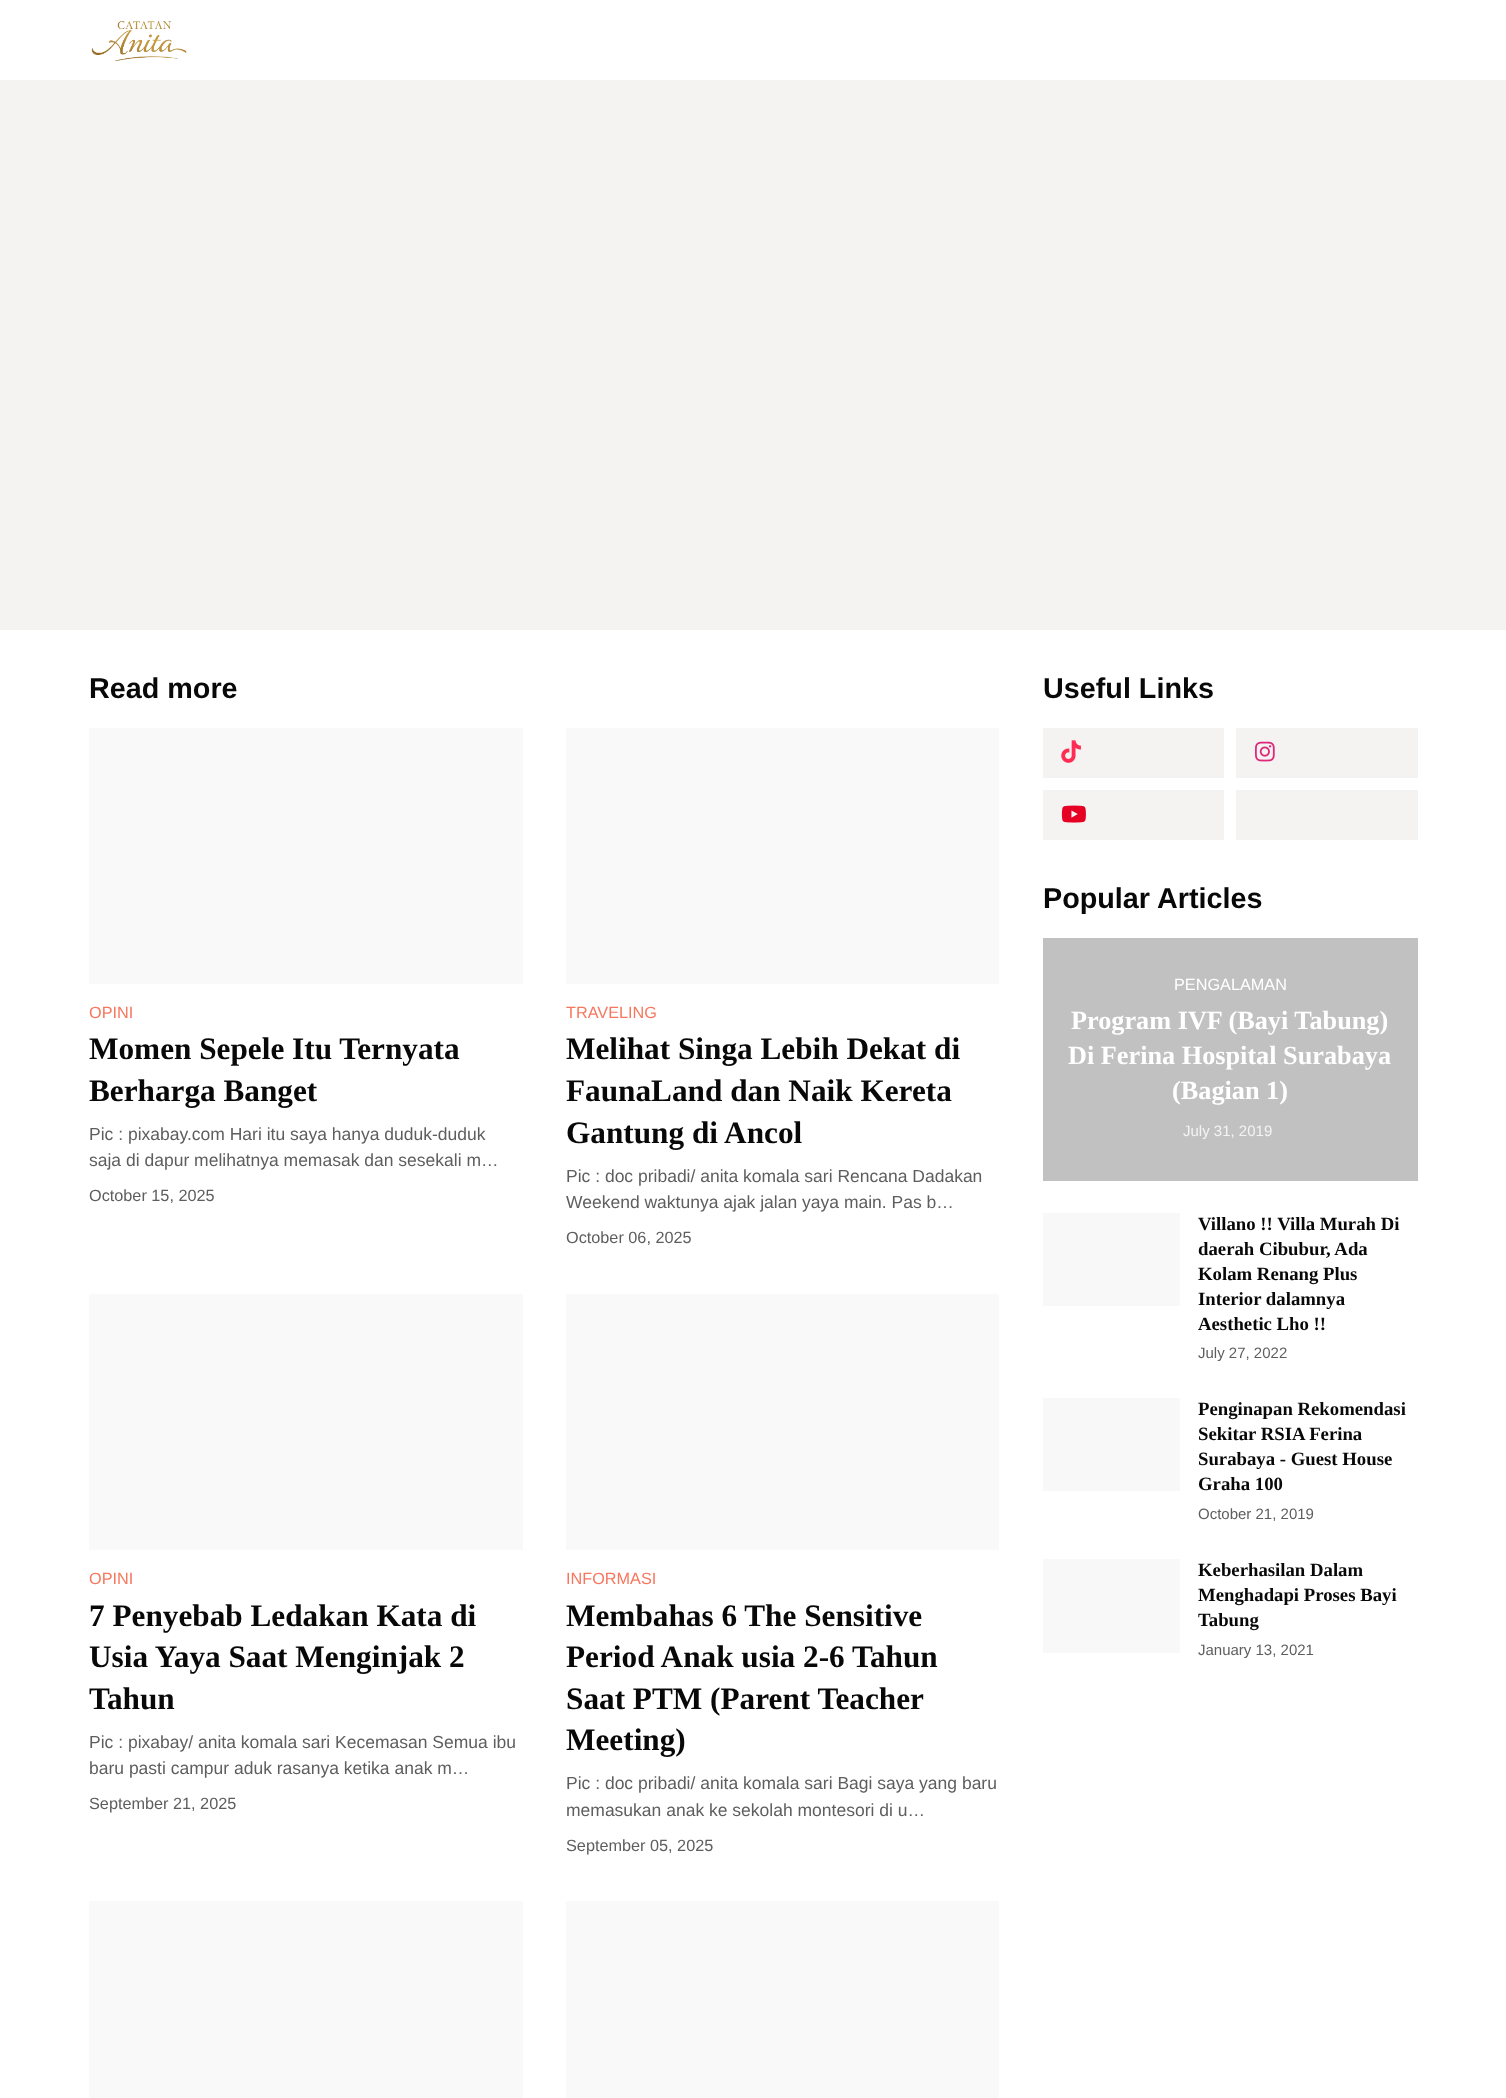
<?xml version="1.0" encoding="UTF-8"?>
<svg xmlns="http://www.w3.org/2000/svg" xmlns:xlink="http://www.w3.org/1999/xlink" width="1506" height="2098">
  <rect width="100%" height="100%" fill="#ffffff" />
  <image x="91" y="21" width="96" height="41" xlink:href="image1.png" />
  <rect y="80" width="1506" height="550" fill="#f5f3f1" />
  <rect x="89" y="728" width="434" height="256" fill="#f9f9f9" />
  <rect x="566" y="728" width="433" height="256" fill="#f9f9f9" />
  <rect x="89" y="1294" width="434" height="256" fill="#f9f9f9" />
  <rect x="566" y="1294" width="433" height="256" fill="#f9f9f9" />
  <rect x="89" y="1901" width="434" height="197" fill="#f9f9f9" />
  <rect x="566" y="1901" width="433" height="197" fill="#f9f9f9" />
  <rect x="1043" y="728" width="181" height="50" fill="#f5f3f1" />
  <image x="1061" y="740" width="20" height="23" xlink:href="image2.png" />
  <rect x="1236" y="728" width="182" height="50" fill="#f5f3f1" />
  <image x="1255" y="741" width="20" height="21" xlink:href="image3.png" />
  <rect x="1043" y="790" width="181" height="50" fill="#f5f3f1" />
  <image x="1061" y="805" width="25" height="18" xlink:href="image4.png" />
  <rect x="1236" y="790" width="182" height="50" fill="#f5f3f1" />
  <rect x="1043" y="938" width="375" height="243" fill="#c1c1c1" />
  <rect x="1043" y="1213" width="137" height="93" fill="#f8f8f8" />
  <rect x="1043" y="1398" width="137" height="93" fill="#f8f8f8" />
  <rect x="1043" y="1559" width="137" height="94" fill="#f8f8f8" />
  <text x="89" y="698" style="font-family: Liberation Sans; font-size: 28.75px; font-weight: bold; fill: #080808">Read more</text>
  <text x="89" y="1018" style="font-family: Liberation Sans; font-size: 16.25px; fill: #f7775e">OPINI</text>
  <text x="89" y="1059" style="font-family: Liberation Serif; font-size: 31.25px; font-weight: bold; fill: #080808">Momen Sepele Itu Ternyata</text>
  <text x="89" y="1101" style="font-family: Liberation Serif; font-size: 31.25px; font-weight: bold; fill: #080808">Berharga Banget</text>
  <text x="89" y="1140" style="font-family: Liberation Sans; font-size: 17.5px; fill: #5e5e5e">Pic : pixabay.com Hari itu saya hanya duduk-duduk</text>
  <text x="89" y="1166" style="font-family: Liberation Sans; font-size: 17.5px; fill: #5e5e5e">saja di dapur melihatnya memasak dan sesekali m…</text>
  <text x="89" y="1201" style="font-family: Liberation Sans; font-size: 16.25px; fill: #5e5e5e">October 15, 2025</text>
  <text x="566" y="1018" style="font-family: Liberation Sans; font-size: 16.25px; fill: #f7775e">TRAVELING</text>
  <text x="566" y="1059" style="font-family: Liberation Serif; font-size: 31.25px; font-weight: bold; fill: #080808">Melihat Singa Lebih Dekat di</text>
  <text x="566" y="1101" style="font-family: Liberation Serif; font-size: 31.25px; font-weight: bold; fill: #080808">FaunaLand dan Naik Kereta</text>
  <text x="566" y="1143" style="font-family: Liberation Serif; font-size: 31.25px; font-weight: bold; fill: #080808">Gantung di Ancol</text>
  <text x="566" y="1182" style="font-family: Liberation Sans; font-size: 17.5px; fill: #5e5e5e">Pic : doc pribadi/ anita komala sari Rencana Dadakan</text>
  <text x="566" y="1208" style="font-family: Liberation Sans; font-size: 17.5px; fill: #5e5e5e">Weekend waktunya ajak jalan yaya main. Pas b…</text>
  <text x="566" y="1243" style="font-family: Liberation Sans; font-size: 16.25px; fill: #5e5e5e">October 06, 2025</text>
  <text x="89" y="1584" style="font-family: Liberation Sans; font-size: 16.25px; fill: #f7775e">OPINI</text>
  <text x="89" y="1626" style="font-family: Liberation Serif; font-size: 31.25px; font-weight: bold; fill: #080808">7 Penyebab Ledakan Kata di</text>
  <text x="89" y="1667" style="font-family: Liberation Serif; font-size: 31.25px; font-weight: bold; fill: #080808">Usia Yaya Saat Menginjak 2</text>
  <text x="89" y="1709" style="font-family: Liberation Serif; font-size: 31.25px; font-weight: bold; fill: #080808">Tahun</text>
  <text x="89" y="1748" style="font-family: Liberation Sans; font-size: 17.5px; fill: #5e5e5e">Pic : pixabay/ anita komala sari Kecemasan Semua ibu</text>
  <text x="89" y="1774" style="font-family: Liberation Sans; font-size: 17.5px; fill: #5e5e5e">baru pasti campur aduk rasanya ketika anak m…</text>
  <text x="89" y="1809" style="font-family: Liberation Sans; font-size: 16.25px; fill: #5e5e5e">September 21, 2025</text>
  <text x="566" y="1584" style="font-family: Liberation Sans; font-size: 16.25px; fill: #f7775e">INFORMASI</text>
  <text x="566" y="1626" style="font-family: Liberation Serif; font-size: 31.25px; font-weight: bold; fill: #080808">Membahas 6 The Sensitive</text>
  <text x="566" y="1667" style="font-family: Liberation Serif; font-size: 31.25px; font-weight: bold; fill: #080808">Period Anak usia 2-6 Tahun</text>
  <text x="566" y="1709" style="font-family: Liberation Serif; font-size: 31.25px; font-weight: bold; fill: #080808">Saat PTM (Parent Teacher</text>
  <text x="566" y="1750" style="font-family: Liberation Serif; font-size: 31.25px; font-weight: bold; fill: #080808">Meeting)</text>
  <text x="566" y="1789" style="font-family: Liberation Sans; font-size: 17.5px; fill: #5e5e5e">Pic : doc pribadi/ anita komala sari Bagi saya yang baru</text>
  <text x="566" y="1816" style="font-family: Liberation Sans; font-size: 17.5px; fill: #5e5e5e">memasukan anak ke sekolah montesori di u…</text>
  <text x="566" y="1851" style="font-family: Liberation Sans; font-size: 16.25px; fill: #5e5e5e">September 05, 2025</text>
  <text x="1043" y="698" style="font-family: Liberation Sans; font-size: 28.75px; font-weight: bold; fill: #080808">Useful Links</text>
  <text x="1043" y="908" style="font-family: Liberation Sans; font-size: 28.75px; font-weight: bold; fill: #080808">Popular Articles</text>
  <text x="1174" y="990" style="font-family: Liberation Sans; font-size: 16.25px; fill: #ffffff">PENGALAMAN</text>
  <text x="1071" y="1029" style="font-family: Liberation Serif; font-size: 26.25px; font-weight: bold; fill: #ffffff">Program IVF (Bayi Tabung)</text>
  <text x="1068" y="1064" style="font-family: Liberation Serif; font-size: 26.25px; font-weight: bold; fill: #ffffff">Di Ferina Hospital Surabaya</text>
  <text x="1172" y="1099" style="font-family: Liberation Serif; font-size: 26.25px; font-weight: bold; fill: #ffffff">(Bagian 1)</text>
  <text x="1183" y="1136" style="font-family: Liberation Sans; font-size: 15px; fill: #f4f4f4">July 31, 2019</text>
  <text x="1198" y="1230" style="font-family: Liberation Serif; font-size: 18.75px; font-weight: bold; fill: #080808">Villano !! Villa Murah Di</text>
  <text x="1198" y="1255" style="font-family: Liberation Serif; font-size: 18.75px; font-weight: bold; fill: #080808">daerah Cibubur, Ada</text>
  <text x="1198" y="1280" style="font-family: Liberation Serif; font-size: 18.75px; font-weight: bold; fill: #080808">Kolam Renang Plus</text>
  <text x="1198" y="1305" style="font-family: Liberation Serif; font-size: 18.75px; font-weight: bold; fill: #080808">Interior dalamnya</text>
  <text x="1198" y="1330" style="font-family: Liberation Serif; font-size: 18.75px; font-weight: bold; fill: #080808">Aesthetic Lho !!</text>
  <text x="1198" y="1358" style="font-family: Liberation Sans; font-size: 15px; fill: #5e5e5e">July 27, 2022</text>
  <text x="1198" y="1415" style="font-family: Liberation Serif; font-size: 18.75px; font-weight: bold; fill: #080808">Penginapan Rekomendasi</text>
  <text x="1198" y="1440" style="font-family: Liberation Serif; font-size: 18.75px; font-weight: bold; fill: #080808">Sekitar RSIA Ferina</text>
  <text x="1198" y="1465" style="font-family: Liberation Serif; font-size: 18.75px; font-weight: bold; fill: #080808">Surabaya - Guest House</text>
  <text x="1198" y="1490" style="font-family: Liberation Serif; font-size: 18.75px; font-weight: bold; fill: #080808">Graha 100</text>
  <text x="1198" y="1519" style="font-family: Liberation Sans; font-size: 15px; fill: #5e5e5e">October 21, 2019</text>
  <text x="1198" y="1576" style="font-family: Liberation Serif; font-size: 18.75px; font-weight: bold; fill: #080808">Keberhasilan Dalam</text>
  <text x="1198" y="1601" style="font-family: Liberation Serif; font-size: 18.75px; font-weight: bold; fill: #080808">Menghadapi Proses Bayi</text>
  <text x="1198" y="1626" style="font-family: Liberation Serif; font-size: 18.75px; font-weight: bold; fill: #080808">Tabung</text>
  <text x="1198" y="1655" style="font-family: Liberation Sans; font-size: 15px; fill: #5e5e5e">January 13, 2021</text>
</svg>
